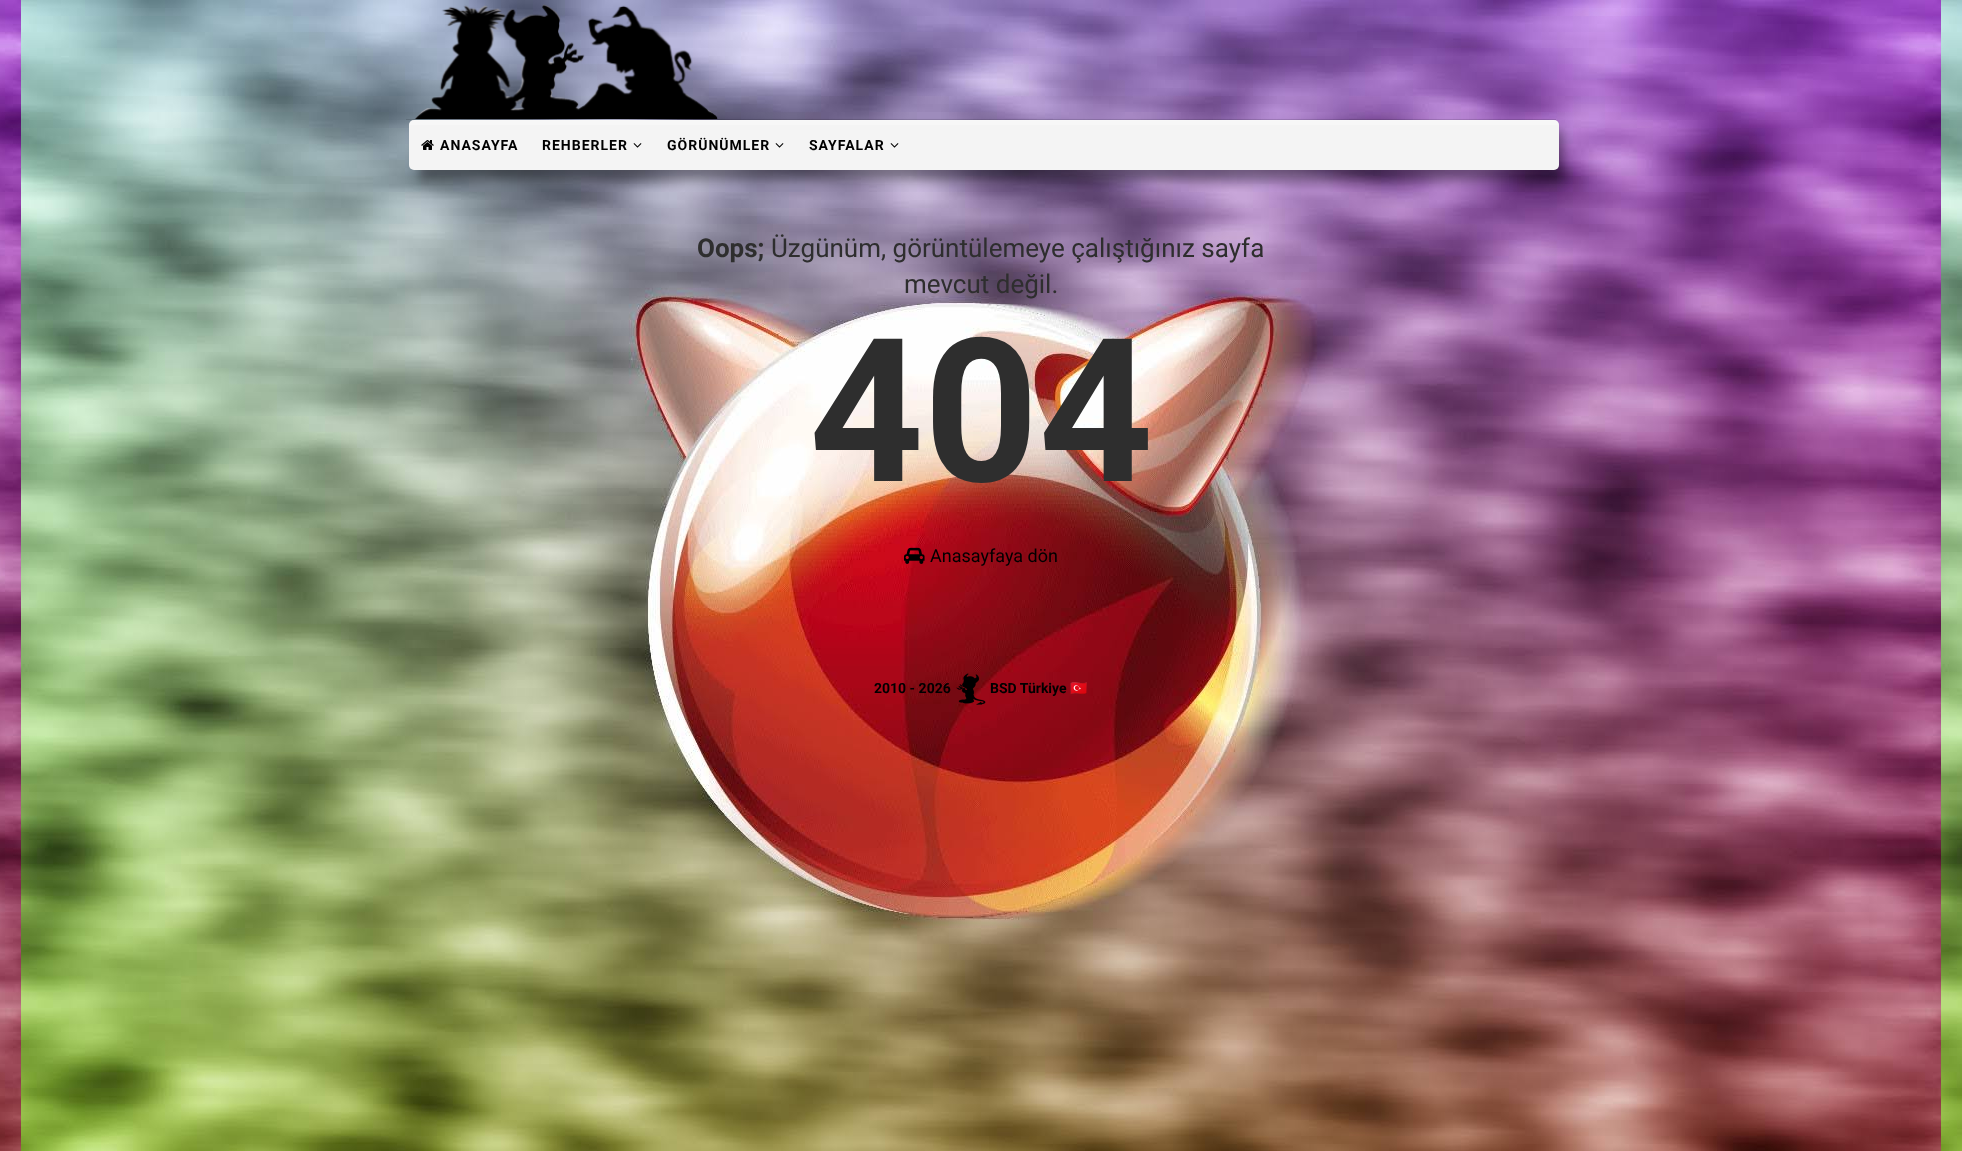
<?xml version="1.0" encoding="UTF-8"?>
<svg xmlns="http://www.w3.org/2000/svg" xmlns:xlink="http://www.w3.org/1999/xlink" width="1962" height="1151">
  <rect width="100%" height="100%" fill="#ffffff" />
  <image x="0" y="0" width="1962" height="1151" xlink:href="image1.png" />
  <rect x="419" y="130" width="1144" height="50" fill="#000000" fill-opacity="0.4" filter="blur(5.5px)" />
  <rect x="406" y="119" width="1150" height="1" fill="#000000" fill-opacity="0.12" />
  <image x="415" y="4" width="303" height="115" xlink:href="image2.png" />
  <rect x="409" y="120" width="1150" height="50" rx="5" fill="#f4f4f4" />
  <image x="409" y="120" width="1150" height="5" xlink:href="image3.png" />
  <image x="421" y="140" width="13" height="10" xlink:href="image4.png" />
  <image x="633" y="143" width="9" height="5" xlink:href="image5.png" />
  <image x="775" y="143" width="9" height="5" xlink:href="image5.png" />
  <image x="890" y="143" width="9" height="5" xlink:href="image5.png" />
  <image x="904" y="547" width="21" height="17" xlink:href="image6.png" />
  <image x="956" y="673" width="30" height="32" xlink:href="image7.png" />
  <text x="440" y="150" style="font-family: Roboto; font-size: 14px; font-weight: bold; letter-spacing: 1px; fill: #000000">ANASAYFA</text>
  <text x="542" y="150" style="font-family: Roboto; font-size: 14px; font-weight: bold; letter-spacing: 1px; fill: #000000">REHBERLER</text>
  <text x="667" y="150" style="font-family: Roboto; font-size: 14px; font-weight: bold; letter-spacing: 1px; fill: #000000">GÖRÜNÜMLER</text>
  <text x="809" y="150" style="font-family: Roboto; font-size: 14px; font-weight: bold; letter-spacing: 1px; fill: #000000">SAYFALAR</text>
  <text x="697" y="257" style="font-family: Roboto; font-size: 26px; font-weight: bold; fill: #2e2e2e">Oops;</text>
  <text x="771" y="257" style="font-family: Roboto; font-size: 26px; fill: #2e2e2e">Üzgünüm, görüntülemeye çalıştığınız sayfa</text>
  <text x="904" y="293" style="font-family: Roboto; font-size: 26px; fill: #2e2e2e">mevcut değil.</text>
  <text x="809" y="481" style="font-family: Roboto; font-size: 200px; font-weight: bold; fill: #2e2e2e">404</text>
  <text x="930" y="562" style="font-family: Roboto; font-size: 18px; fill: #000000">Anasayfaya dön</text>
  <text x="874" y="693" style="font-family: Roboto; font-size: 14px; font-weight: bold; fill: #000000">2010 - 2026</text>
  <text x="990" y="693" style="font-family: Roboto; font-size: 14px; font-weight: bold; fill: #000000">BSD Türkiye</text>
  <text x="1070" y="693" style="font-family: Noto Color Emoji; font-size: 14px; font-weight: bold; fill: #000000">🇹🇷</text>
</svg>
